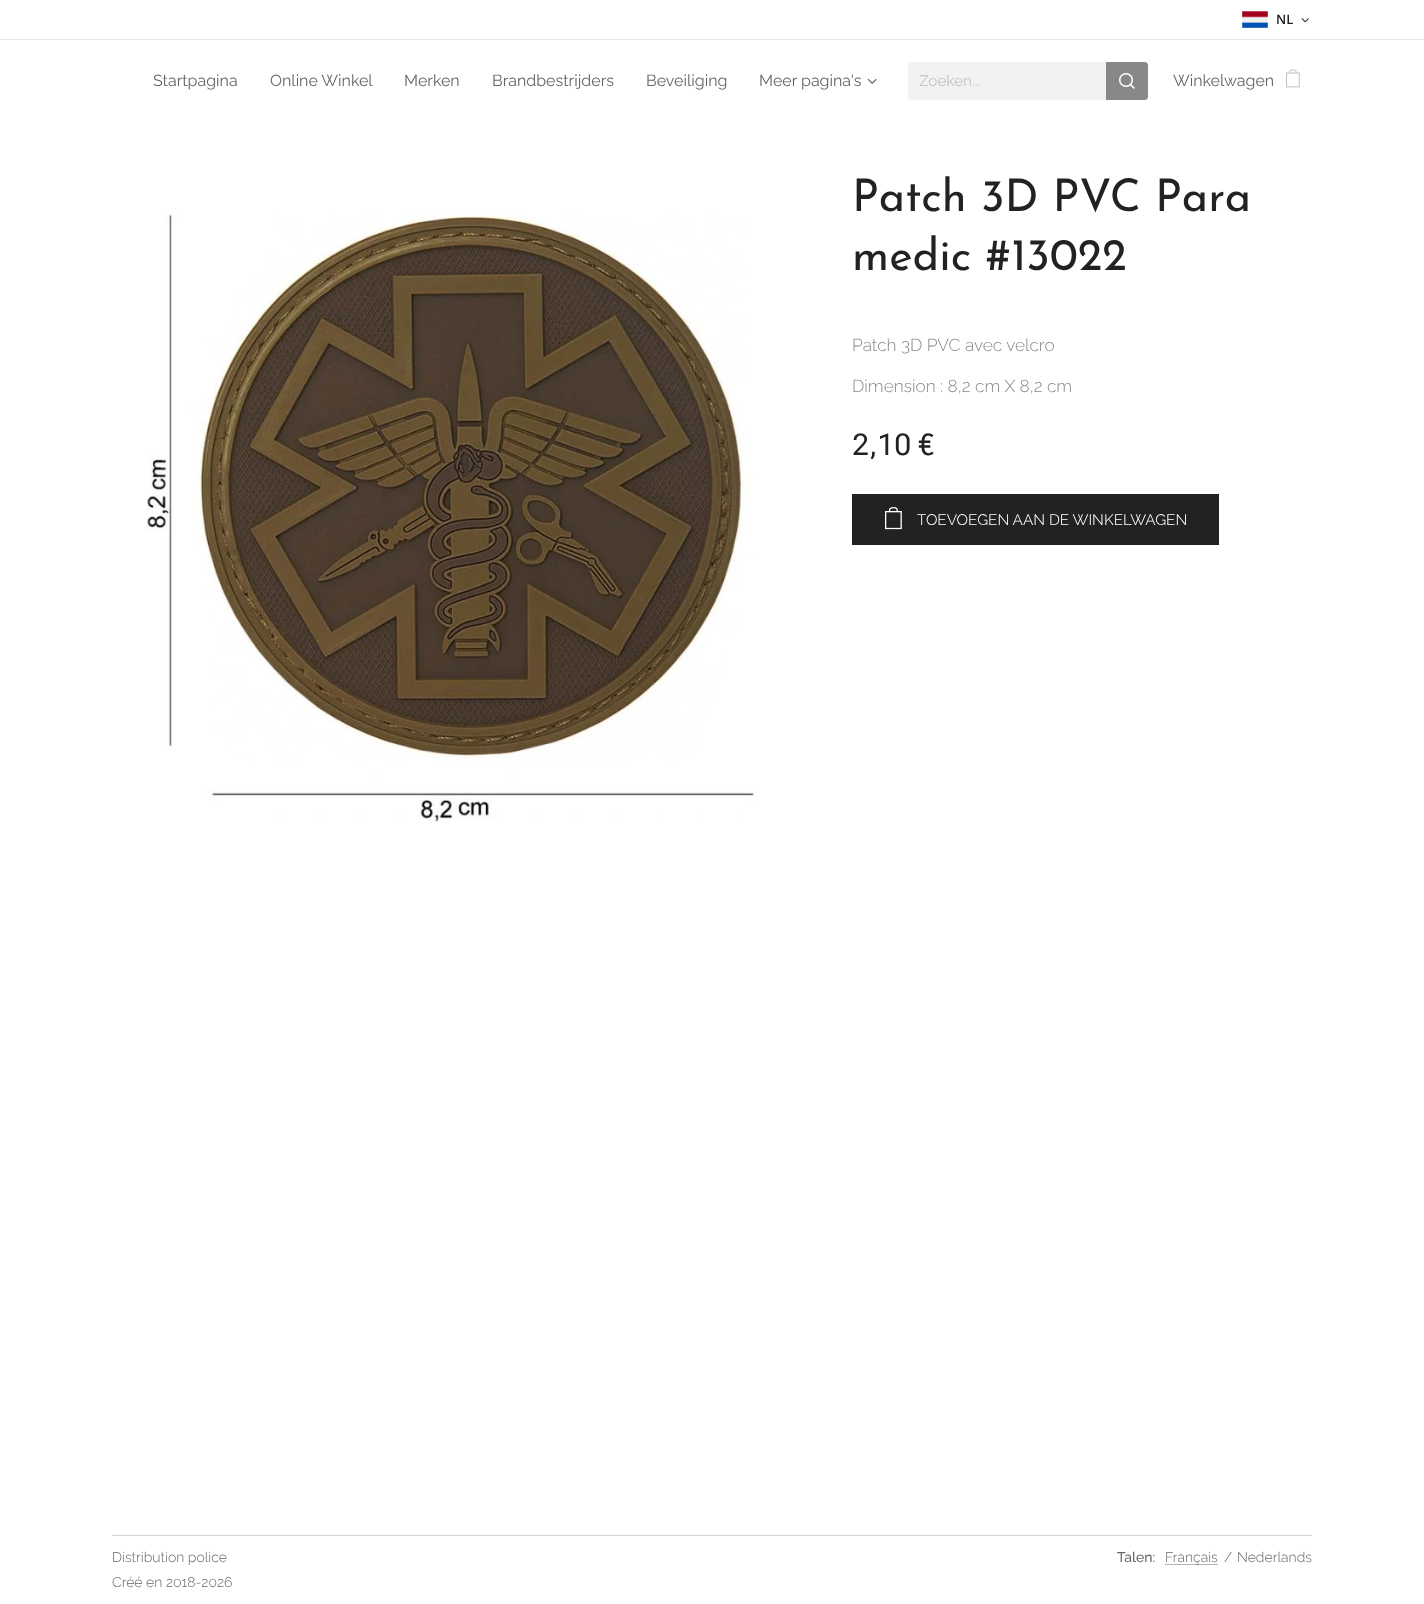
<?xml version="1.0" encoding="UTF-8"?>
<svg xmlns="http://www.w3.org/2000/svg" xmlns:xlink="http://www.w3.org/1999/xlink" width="1424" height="1604">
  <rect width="100%" height="100%" fill="#ffffff" />
  <image x="1242" y="11" width="26" height="17" xlink:href="image1.png" />
  <image x="1301" y="18" width="8" height="5" xlink:href="image2.png" />
  <rect y="39" width="1424" height="1" fill="#e8e8e8" />
  <image x="867" y="78" width="10" height="6" xlink:href="image3.png" />
  <path d="M 911 62 h 195 v 38 h -195 c -1.5 0 -3 -1.5 -3 -3 v -32 c 0 -1.5 1.5 -3 3 -3 z" fill="#f2f2f2" />
  <path d="M 1106 62 h 39 c 1.5 0 3 1.5 3 3 v 32 c 0 1.5 -1.5 3 -3 3 h -39 z" fill="#888888" />
  <image x="1119" y="73" width="16" height="16" xlink:href="image4.png" />
  <image x="1286" y="69" width="14" height="19" xlink:href="image5.png" />
  <image x="146" y="214" width="609" height="608" xlink:href="image6.png" />
  <rect x="852" y="494" width="367" height="51" fill="#222222" />
  <image x="885" y="507" width="17" height="23" xlink:href="image7.png" />
  <rect x="112" y="1535" width="1200" height="1" fill="#d4d4d4" />
  <rect x="1165" y="1564" width="53" height="1" fill="#b3b3b3" />
  <text x="1276" y="24" style="font-family: Open Sans; font-size: 13px; font-weight: 600; fill: #222222">NL</text>
  <text x="153" y="86" style="font-family: Raleway; font-size: 16px; fill: #666666">Startpagina</text>
  <text x="270" y="86" style="font-family: Raleway; font-size: 16px; fill: #666666">Online Winkel</text>
  <text x="404" y="86" style="font-family: Raleway; font-size: 16px; fill: #666666">Merken</text>
  <text x="492" y="86" style="font-family: Raleway; font-size: 16px; fill: #666666">Brandbestrijders</text>
  <text x="646" y="86" style="font-family: Raleway; font-size: 16px; fill: #666666">Beveiliging</text>
  <text x="759" y="86" style="font-family: Raleway; font-size: 16px; fill: #666666">Meer pagina's</text>
  <text x="919" y="86" style="font-family: Raleway; font-size: 15.25px; fill: #c3c3c3">Zoeken...</text>
  <text x="1173" y="86" style="font-family: Raleway; font-size: 16px; fill: #666666">Winkelwagen</text>
  <text x="852" y="211" style="font-family: Josefin Sans; font-size: 45px; fill: #222222">Patch 3D PVC Para</text>
  <text x="852" y="270" style="font-family: Josefin Sans; font-size: 45px; fill: #222222">medic #13022</text>
  <text x="852" y="351" style="font-family: Raleway; font-size: 17.25px; font-weight: 300; fill: #888888">Patch 3D PVC avec velcro</text>
  <text x="852" y="392" style="font-family: Raleway; font-size: 17.25px; font-weight: 300; fill: #888888">Dimension : 8,2 cm X 8,2 cm</text>
  <text x="852" y="455" style="font-family: Roboto Flex; font-size: 30px; fill: #222222">2,10 €</text>
  <text x="917" y="525" style="font-family: 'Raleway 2'; font-size: 15.25px; font-weight: 300; fill: #ffffff">TOEVOEGEN AAN DE WINKELWAGEN</text>
  <text x="112" y="1562" style="font-family: Raleway; font-size: 14px; font-weight: 300; fill: #666666">Distribution police</text>
  <text x="112" y="1587" style="font-family: Raleway; font-size: 14px; font-weight: 300; fill: #666666">Créé en 2018-2026</text>
  <text x="1117" y="1562" style="font-family: Raleway; font-size: 14px; font-weight: 500; fill: #666666">Talen:</text>
  <text x="1165" y="1562" style="font-family: Raleway; font-size: 14px; font-weight: 300; fill: #666666">Français</text>
  <text x="1224" y="1562" style="font-family: Raleway; font-size: 14px; font-weight: 300; fill: #666666">/</text>
  <text x="1237" y="1562" style="font-family: Raleway; font-size: 14px; font-weight: 300; fill: #666666">Nederlands</text>
</svg>
